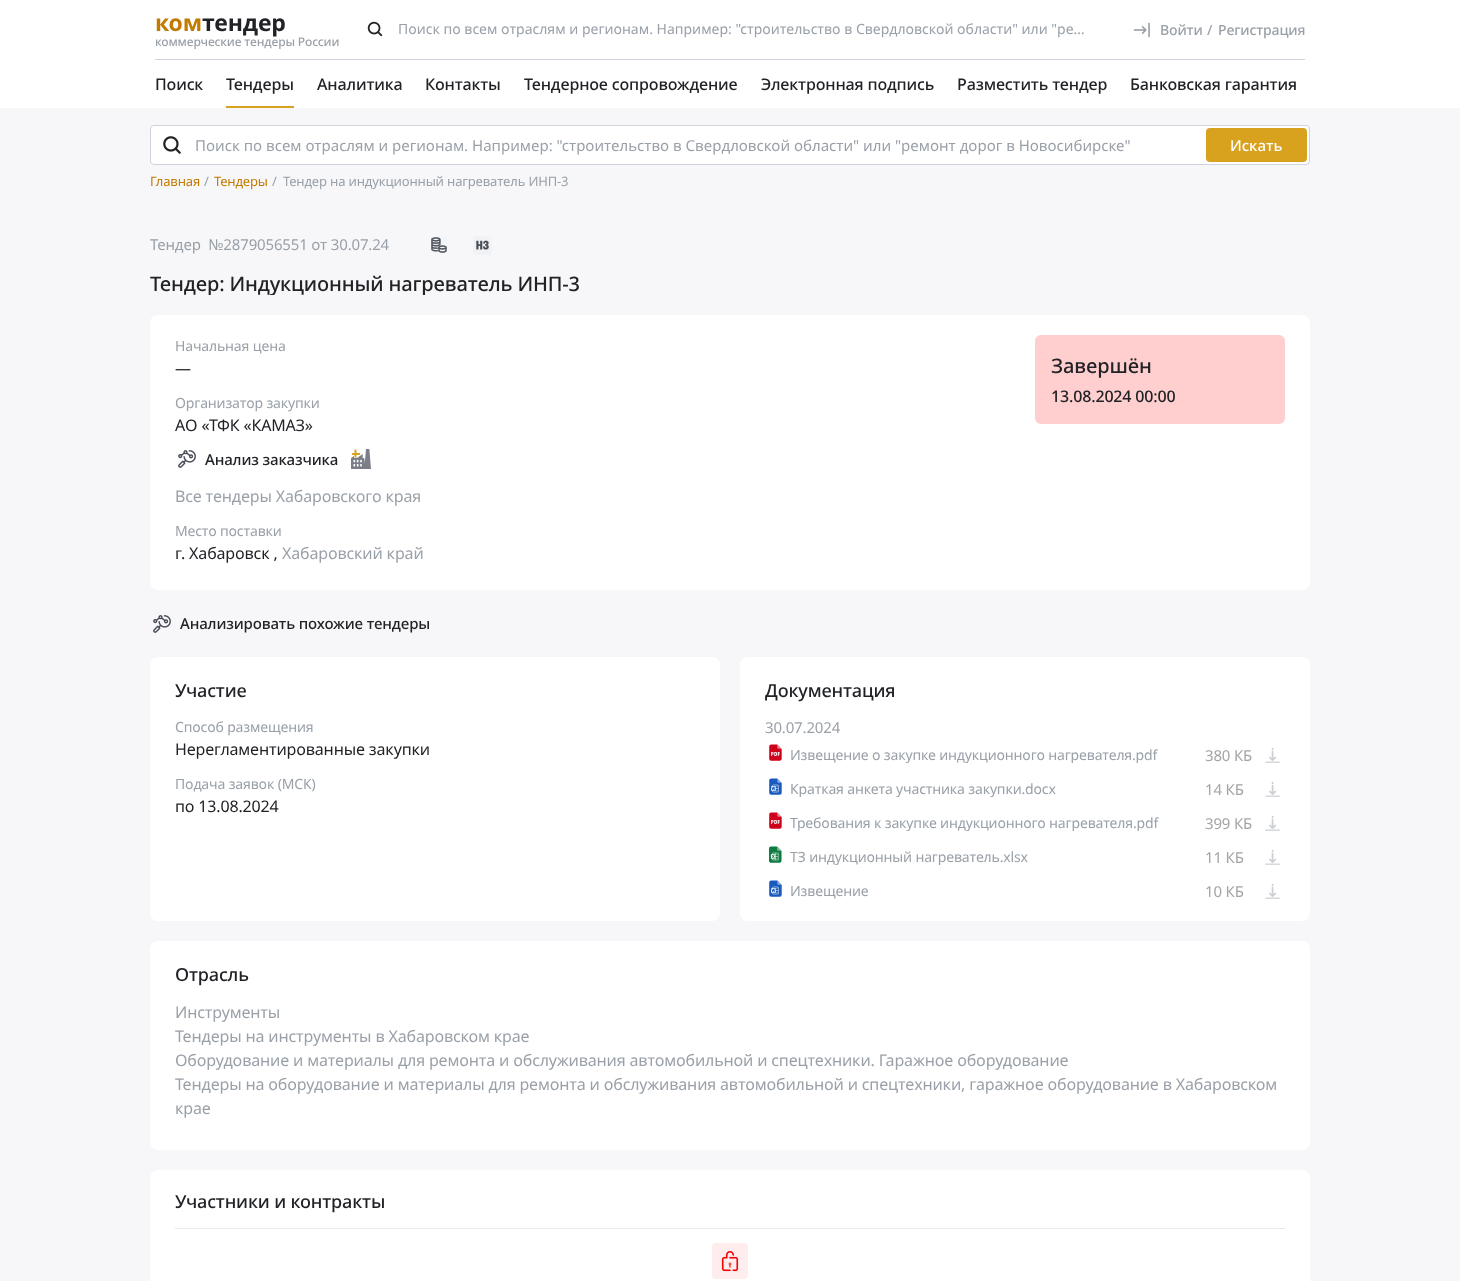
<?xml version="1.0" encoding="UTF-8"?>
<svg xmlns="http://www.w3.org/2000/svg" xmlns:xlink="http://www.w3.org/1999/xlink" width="1460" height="1281">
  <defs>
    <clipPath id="clip1"><rect x="150" y="273" width="430" height="22" /></clipPath>
    <clipPath id="clip2"><rect x="790" y="747" width="395" height="16" /></clipPath>
    <clipPath id="clip3"><rect x="790" y="781" width="395" height="16" /></clipPath>
    <clipPath id="clip4"><rect x="790" y="815" width="395" height="16" /></clipPath>
    <clipPath id="clip5"><rect x="790" y="849" width="395" height="16" /></clipPath>
  </defs>
  <rect width="100%" height="100%" fill="#f7f7fa" />
  <rect width="1460" height="108" fill="#ffffff" />
  <rect x="155" y="59" width="1150" height="1" fill="#ced3dd" />
  <image x="367" y="21" width="16" height="16" xlink:href="image1.png" />
  <image x="1133" y="22" width="17" height="16" xlink:href="image2.png" />
  <rect x="226" y="106" width="68" height="2" fill="#d8a11e" />
  <rect x="150.5" y="125.5" width="1159" height="39" rx="3.5" fill="#ffffff" stroke="#ced3dd" />
  <image x="163" y="136" width="18" height="18" xlink:href="image3.png" />
  <rect x="1207" y="129" width="99" height="32" rx="3" fill="#d8a11e" stroke="#d8a11e" stroke-width="2" />
  <image x="431" y="237" width="16" height="16" xlink:href="image4.png" />
  <image x="473" y="236" width="19" height="19" xlink:href="image5.png" />
  <rect x="150" y="315" width="1160" height="275" rx="8" fill="#ffffff" />
  <image x="178" y="450" width="18" height="18" xlink:href="image6.png" />
  <image x="351" y="449" width="20" height="20" xlink:href="image7.png" />
  <rect x="1035" y="335" width="250" height="89" rx="6" fill="#ffcece" />
  <image x="153" y="615" width="18" height="18" xlink:href="image8.png" />
  <rect x="150" y="657" width="570" height="264" rx="8" fill="#ffffff" />
  <rect x="740" y="657" width="570" height="264" rx="8" fill="#ffffff" />
  <image x="769" y="744" width="13" height="17" xlink:href="image9.png" />
  <image x="1265" y="747" width="15" height="16" xlink:href="image10.png" />
  <image x="769" y="778" width="13" height="17" xlink:href="image11.png" />
  <image x="1265" y="781" width="15" height="16" xlink:href="image10.png" />
  <image x="769" y="812" width="13" height="17" xlink:href="image9.png" />
  <image x="1265" y="815" width="15" height="16" xlink:href="image10.png" />
  <image x="769" y="846" width="13" height="17" xlink:href="image12.png" />
  <image x="1265" y="849" width="15" height="16" xlink:href="image10.png" />
  <image x="769" y="880" width="13" height="17" xlink:href="image11.png" />
  <image x="1265" y="883" width="15" height="16" xlink:href="image10.png" />
  <rect x="150" y="941" width="1160" height="209" rx="8" fill="#ffffff" />
  <rect x="150" y="1170" width="1160" height="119" rx="8" fill="#ffffff" />
  <rect x="175" y="1228" width="1110" height="1" fill="#e7e9ee" />
  <rect x="712" y="1243" width="36" height="36" rx="4" fill="#ffeded" />
  <image x="721" y="1251" width="18" height="21" xlink:href="image13.png" />
  <text x="155" y="31" style="font-family: Noto Sans; font-size: 23px; font-weight: bold; letter-spacing: -0.16px; fill: #c27b00">ком</text>
  <text x="202" y="31" style="font-family: Noto Sans; font-size: 23px; font-weight: bold; letter-spacing: -0.16px; fill: #202226">тендер</text>
  <text x="155" y="46" style="font-family: Noto Sans; font-size: 12px; font-weight: 500; letter-spacing: -0.16px; fill: #99a0a8">коммерческие тендеры России</text>
  <text x="398" y="34" style="font-family: Noto Sans; font-size: 14px; fill: #99a0a8">Поиск по всем отраслям и регионам. Например: "строительство в Свердловской области" или "ре…</text>
  <text x="1160" y="35" style="font-family: Noto Sans; font-size: 14px; font-weight: 500; letter-spacing: -0.16px; fill: #99a0a8">Войти</text>
  <text x="1207" y="35" style="font-family: Noto Sans; font-size: 14px; font-weight: 500; letter-spacing: -0.16px; fill: #99a0a8">/</text>
  <text x="1218" y="35" style="font-family: Noto Sans; font-size: 14px; font-weight: 500; letter-spacing: -0.16px; fill: #99a0a8">Регистрация</text>
  <text x="155" y="90" style="font-family: Noto Sans; font-size: 16px; font-weight: 500; letter-spacing: -0.16px; fill: #202226">Поиск</text>
  <text x="226" y="90" style="font-family: Noto Sans; font-size: 16px; font-weight: 500; letter-spacing: -0.16px; fill: #202226">Тендеры</text>
  <text x="317" y="90" style="font-family: Noto Sans; font-size: 16px; font-weight: 500; letter-spacing: -0.16px; fill: #202226">Аналитика</text>
  <text x="425" y="90" style="font-family: Noto Sans; font-size: 16px; font-weight: 500; letter-spacing: -0.16px; fill: #202226">Контакты</text>
  <text x="524" y="90" style="font-family: Noto Sans; font-size: 16px; font-weight: 500; letter-spacing: -0.16px; fill: #202226">Тендерное сопровождение</text>
  <text x="761" y="90" style="font-family: Noto Sans; font-size: 16px; font-weight: 500; letter-spacing: -0.16px; fill: #202226">Электронная подпись</text>
  <text x="957" y="90" style="font-family: Noto Sans; font-size: 16px; font-weight: 500; letter-spacing: -0.16px; fill: #202226">Разместить тендер</text>
  <text x="1130" y="90" style="font-family: Noto Sans; font-size: 16px; font-weight: 500; letter-spacing: -0.16px; fill: #202226">Банковская гарантия</text>
  <text x="195" y="151" style="font-family: Noto Sans; font-size: 15px; fill: #99a0a8">Поиск по всем отраслям и регионам. Например: "строительство в Свердловской области" или "ремонт дорог в Новосибирске"</text>
  <text x="1230" y="151" style="font-family: Noto Sans; font-size: 15px; font-weight: 500; fill: #ffffff">Искать</text>
  <text x="150" y="186" style="font-family: Noto Sans; font-size: 13px; letter-spacing: -0.16px; fill: #c27b00">Главная</text>
  <text x="204" y="186" style="font-family: Noto Sans; font-size: 13px; letter-spacing: -0.16px; fill: #99a0a8">/</text>
  <text x="214" y="186" style="font-family: Noto Sans; font-size: 13px; letter-spacing: -0.16px; fill: #c27b00">Тендеры</text>
  <text x="272" y="186" style="font-family: Noto Sans; font-size: 13px; letter-spacing: -0.16px; fill: #99a0a8">/</text>
  <text x="283" y="186" style="font-family: Noto Sans; font-size: 13px; letter-spacing: -0.16px; fill: #99a0a8">Тендер на индукционный нагреватель ИНП-3</text>
  <text x="150" y="250" style="font-family: Noto Sans; font-size: 15px; letter-spacing: -0.16px; fill: #99a0a8" xml:space="preserve">Тендер  №2879056551 от 30.07.24</text>
  <g clip-path="url(#clip1)">
    <text x="150" y="291" style="font-family: Noto Sans; font-size: 20px; font-weight: 500; letter-spacing: -0.16px; fill: #202226">Тендер: Индукционный нагреватель ИНП-3</text>
  </g>
  <text x="175" y="351" style="font-family: Noto Sans; font-size: 14px; letter-spacing: -0.16px; fill: #99a0a8">Начальная цена</text>
  <text x="175" y="374" style="font-family: Noto Sans; font-size: 16px; letter-spacing: -0.16px; fill: #202226">—</text>
  <text x="175" y="408" style="font-family: Noto Sans; font-size: 14px; letter-spacing: -0.16px; fill: #99a0a8">Организатор закупки</text>
  <text x="175" y="431" style="font-family: Noto Sans; font-size: 16px; letter-spacing: -0.16px; fill: #202226">АО «ТФК «КАМАЗ»</text>
  <text x="205" y="465" style="font-family: Noto Sans; font-size: 15px; font-weight: 500; letter-spacing: -0.16px; fill: #202226">Анализ заказчика</text>
  <text x="175" y="502" style="font-family: Noto Sans; font-size: 16px; letter-spacing: -0.16px; fill: #99a0a8">Все тендеры Хабаровского края</text>
  <text x="175" y="536" style="font-family: Noto Sans; font-size: 14px; letter-spacing: -0.16px; fill: #99a0a8">Место поставки</text>
  <text x="175" y="559" style="font-family: Noto Sans; font-size: 16px; letter-spacing: -0.16px; fill: #202226">г. Хабаровск ,</text>
  <text x="282" y="559" style="font-family: Noto Sans; font-size: 16px; letter-spacing: -0.16px; fill: #99a0a8">Хабаровский край</text>
  <text x="1051" y="373" style="font-family: Noto Sans; font-size: 20px; font-weight: 500; letter-spacing: -0.16px; fill: #202226">Завершён</text>
  <text x="1051" y="402" style="font-family: Noto Sans; font-size: 16px; font-weight: 500; letter-spacing: -0.16px; fill: #202226">13.08.2024 00:00</text>
  <text x="180" y="629" style="font-family: Noto Sans; font-size: 15px; font-weight: 500; letter-spacing: -0.16px; fill: #202226">Анализировать похожие тендеры</text>
  <text x="175" y="697" style="font-family: Noto Sans; font-size: 18px; font-weight: 500; letter-spacing: -0.16px; fill: #202226">Участие</text>
  <text x="175" y="732" style="font-family: Noto Sans; font-size: 14px; letter-spacing: -0.16px; fill: #99a0a8">Способ размещения</text>
  <text x="175" y="755" style="font-family: Noto Sans; font-size: 16px; letter-spacing: -0.16px; fill: #202226">Нерегламентированные закупки</text>
  <text x="175" y="789" style="font-family: Noto Sans; font-size: 14px; letter-spacing: -0.16px; fill: #99a0a8">Подача заявок (МСК)</text>
  <text x="175" y="812" style="font-family: Noto Sans; font-size: 16px; letter-spacing: -0.16px; fill: #202226">по 13.08.2024</text>
  <text x="765" y="697" style="font-family: Noto Sans; font-size: 18px; font-weight: 500; letter-spacing: -0.16px; fill: #202226">Документация</text>
  <text x="765" y="733" style="font-family: Noto Sans; font-size: 15px; letter-spacing: -0.16px; fill: #99a0a8">30.07.2024</text>
  <g clip-path="url(#clip2)">
    <text x="790" y="760" style="font-family: Noto Sans; font-size: 14px; letter-spacing: -0.16px; fill: #99a0a8">Извещение о закупке индукционного нагревателя.pdf</text>
  </g>
  <text x="1205" y="761" style="font-family: Noto Sans; font-size: 15px; letter-spacing: -0.16px; fill: #a4a4a4">380 КБ</text>
  <g clip-path="url(#clip3)">
    <text x="790" y="794" style="font-family: Noto Sans; font-size: 14px; letter-spacing: -0.16px; fill: #99a0a8">Краткая анкета участника закупки.docx</text>
  </g>
  <text x="1205" y="795" style="font-family: Noto Sans; font-size: 15px; letter-spacing: -0.16px; fill: #a4a4a4">14 КБ</text>
  <g clip-path="url(#clip4)">
    <text x="790" y="828" style="font-family: Noto Sans; font-size: 14px; letter-spacing: -0.16px; fill: #99a0a8">Требования к закупке индукционного нагревателя.pdf</text>
  </g>
  <text x="1205" y="829" style="font-family: Noto Sans; font-size: 15px; letter-spacing: -0.16px; fill: #a4a4a4">399 КБ</text>
  <g clip-path="url(#clip5)">
    <text x="790" y="862" style="font-family: Noto Sans; font-size: 14px; letter-spacing: -0.16px; fill: #99a0a8">ТЗ индукционный нагреватель.xlsx</text>
  </g>
  <text x="1205" y="863" style="font-family: Noto Sans; font-size: 15px; letter-spacing: -0.16px; fill: #a4a4a4">11 КБ</text>
  <text x="790" y="896" style="font-family: Noto Sans; font-size: 14px; letter-spacing: -0.16px; fill: #99a0a8">Извещение</text>
  <text x="1205" y="897" style="font-family: Noto Sans; font-size: 15px; letter-spacing: -0.16px; fill: #a4a4a4">10 КБ</text>
  <text x="175" y="981" style="font-family: Noto Sans; font-size: 18px; font-weight: 500; letter-spacing: -0.16px; fill: #202226">Отрасль</text>
  <text x="175" y="1018" style="font-family: Noto Sans; font-size: 16px; letter-spacing: -0.16px; fill: #99a0a8">Инструменты</text>
  <text x="175" y="1042" style="font-family: Noto Sans; font-size: 16px; letter-spacing: -0.16px; fill: #99a0a8">Тендеры на инструменты в Хабаровском крае</text>
  <text x="175" y="1066" style="font-family: Noto Sans; font-size: 16px; letter-spacing: -0.16px; fill: #99a0a8">Оборудование и материалы для ремонта и обслуживания автомобильной и спецтехники. Гаражное оборудование</text>
  <text x="175" y="1090" style="font-family: Noto Sans; font-size: 16px; letter-spacing: -0.16px; fill: #99a0a8">Тендеры на оборудование и материалы для ремонта и обслуживания автомобильной и спецтехники, гаражное оборудование в Хабаровском</text>
  <text x="175" y="1114" style="font-family: Noto Sans; font-size: 16px; letter-spacing: -0.16px; fill: #99a0a8">крае</text>
  <text x="175" y="1208" style="font-family: Noto Sans; font-size: 18px; font-weight: 500; letter-spacing: -0.16px; fill: #202226">Участники и контракты</text>
</svg>
